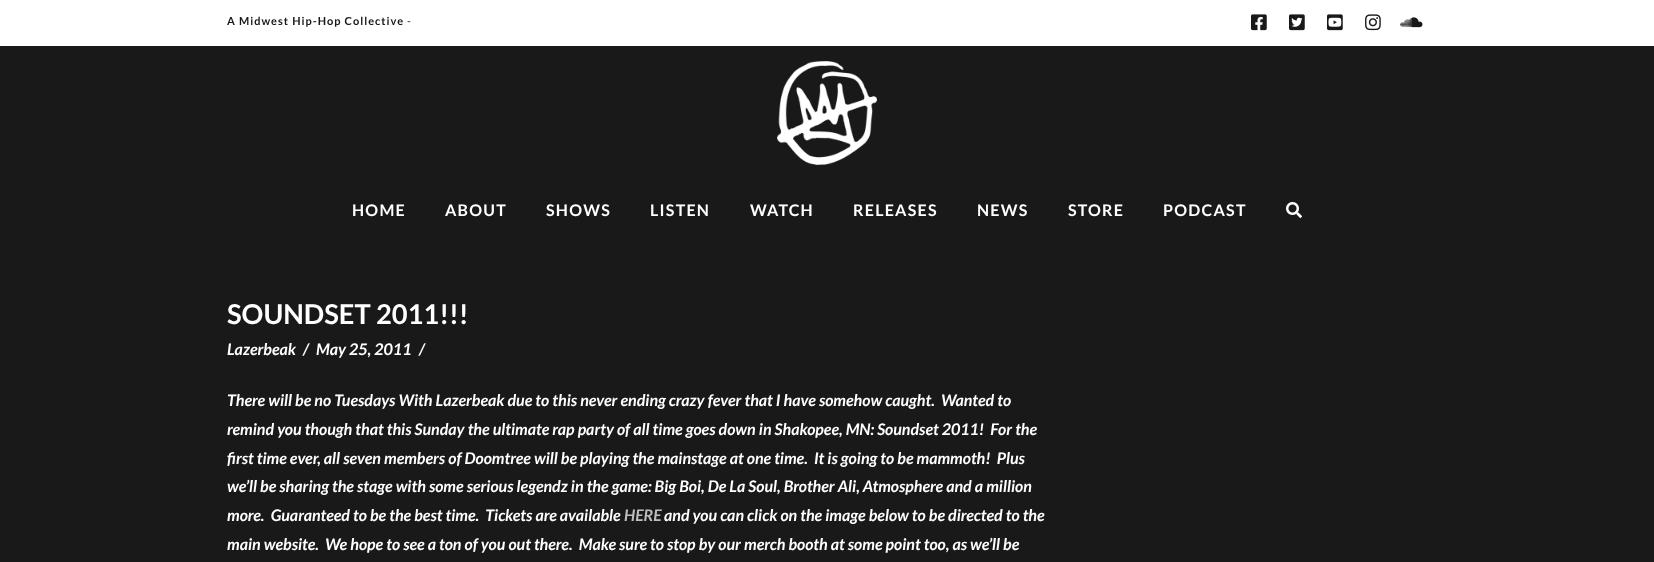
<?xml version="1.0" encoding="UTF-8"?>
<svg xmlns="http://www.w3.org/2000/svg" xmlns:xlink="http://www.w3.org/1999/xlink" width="1654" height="562">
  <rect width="100%" height="100%" fill="#191919" />
  <rect width="1654" height="46" fill="#ffffff" />
  <image x="1251" y="14" width="16" height="17" xlink:href="image1.png" />
  <image x="1289" y="14" width="16" height="17" xlink:href="image2.png" />
  <image x="1327" y="14" width="16" height="17" xlink:href="image3.png" />
  <image x="1365" y="14" width="16" height="17" xlink:href="image4.png" />
  <image x="1400" y="17" width="23" height="11" xlink:href="image5.png" />
  <image x="777" y="61" width="100" height="104" xlink:href="image6.png" />
  <image x="1286" y="202" width="16" height="16" xlink:href="image7.png" />
  <text x="227" y="25" style="font-family: Lato; font-size: 11px; font-weight: bold; letter-spacing: 1px; fill: #191919">A Midwest Hip-Hop Collective</text>
  <text x="407" y="25" style="font-family: Lato; font-size: 11px; letter-spacing: 1px; fill: #191919">-</text>
  <text x="352" y="216" style="font-family: Lato; font-size: 16px; font-weight: bold; letter-spacing: 1.25px; fill: #ffffff">HOME</text>
  <text x="445" y="216" style="font-family: Lato; font-size: 16px; font-weight: bold; letter-spacing: 1.25px; fill: #ffffff">ABOUT</text>
  <text x="546" y="216" style="font-family: Lato; font-size: 16px; font-weight: bold; letter-spacing: 1.25px; fill: #ffffff">SHOWS</text>
  <text x="650" y="216" style="font-family: Lato; font-size: 16px; font-weight: bold; letter-spacing: 1.25px; fill: #ffffff">LISTEN</text>
  <text x="750" y="216" style="font-family: Lato; font-size: 16px; font-weight: bold; letter-spacing: 1.25px; fill: #ffffff">WATCH</text>
  <text x="853" y="216" style="font-family: Lato; font-size: 16px; font-weight: bold; letter-spacing: 1.25px; fill: #ffffff">RELEASES</text>
  <text x="977" y="216" style="font-family: Lato; font-size: 16px; font-weight: bold; letter-spacing: 1.25px; fill: #ffffff">NEWS</text>
  <text x="1068" y="216" style="font-family: Lato; font-size: 16px; font-weight: bold; letter-spacing: 1.25px; fill: #ffffff">STORE</text>
  <text x="1163" y="216" style="font-family: Lato; font-size: 16px; font-weight: bold; letter-spacing: 1.25px; fill: #ffffff">PODCAST</text>
  <text x="227" y="324" style="font-family: Lato; font-size: 27.25px; font-weight: bold; fill: #ffffff">SOUNDSET 2011!!!</text>
  <text x="227" y="355" style="font-family: Lato; font-size: 16px; font-weight: bold; font-style: italic; fill: #ffffff">Lazerbeak</text>
  <text x="303" y="355" style="font-family: Lato; font-size: 16px; font-weight: bold; font-style: italic; fill: #ffffff">/</text>
  <text x="316" y="355" style="font-family: Lato; font-size: 16px; font-weight: bold; font-style: italic; fill: #ffffff">May 25, 2011</text>
  <text x="419" y="355" style="font-family: Lato; font-size: 16px; font-weight: bold; font-style: italic; fill: #ffffff">/</text>
  <text x="227" y="406" style="font-family: Lato; font-size: 16px; font-weight: bold; font-style: italic; fill: #ffffff" xml:space="preserve">There will be no Tuesdays With Lazerbeak due to this never ending crazy fever that I have somehow caught.  Wanted to</text>
  <text x="227" y="435" style="font-family: Lato; font-size: 16px; font-weight: bold; font-style: italic; fill: #ffffff" xml:space="preserve">remind you though that this Sunday the ultimate rap party of all time goes down in Shakopee, MN: Soundset 2011!  For the</text>
  <text x="227" y="464" style="font-family: Lato; font-size: 16px; font-weight: bold; font-style: italic; fill: #ffffff" xml:space="preserve">first time ever, all seven members of Doomtree will be playing the mainstage at one time.  It is going to be mammoth!  Plus</text>
  <text x="227" y="492" style="font-family: Lato; font-size: 16px; font-weight: bold; font-style: italic; fill: #ffffff">we’ll be sharing the stage with some serious legendz in the game: Big Boi, De La Soul, Brother Ali, Atmosphere and a million</text>
  <text x="227" y="521" style="font-family: Lato; font-size: 16px; font-weight: bold; font-style: italic; fill: #ffffff" xml:space="preserve">more.  Guaranteed to be the best time.  Tickets are available</text>
  <text x="624" y="521" style="font-family: Lato; font-size: 16px; font-weight: bold; font-style: italic; fill: #bebebe">HERE</text>
  <text x="664" y="521" style="font-family: Lato; font-size: 16px; font-weight: bold; font-style: italic; fill: #ffffff">and you can click on the image below to be directed to the</text>
  <text x="227" y="550" style="font-family: Lato; font-size: 16px; font-weight: bold; font-style: italic; fill: #ffffff" xml:space="preserve">main website.  We hope to see a ton of you out there.  Make sure to stop by our merch booth at some point too, as we’ll be</text>
</svg>
